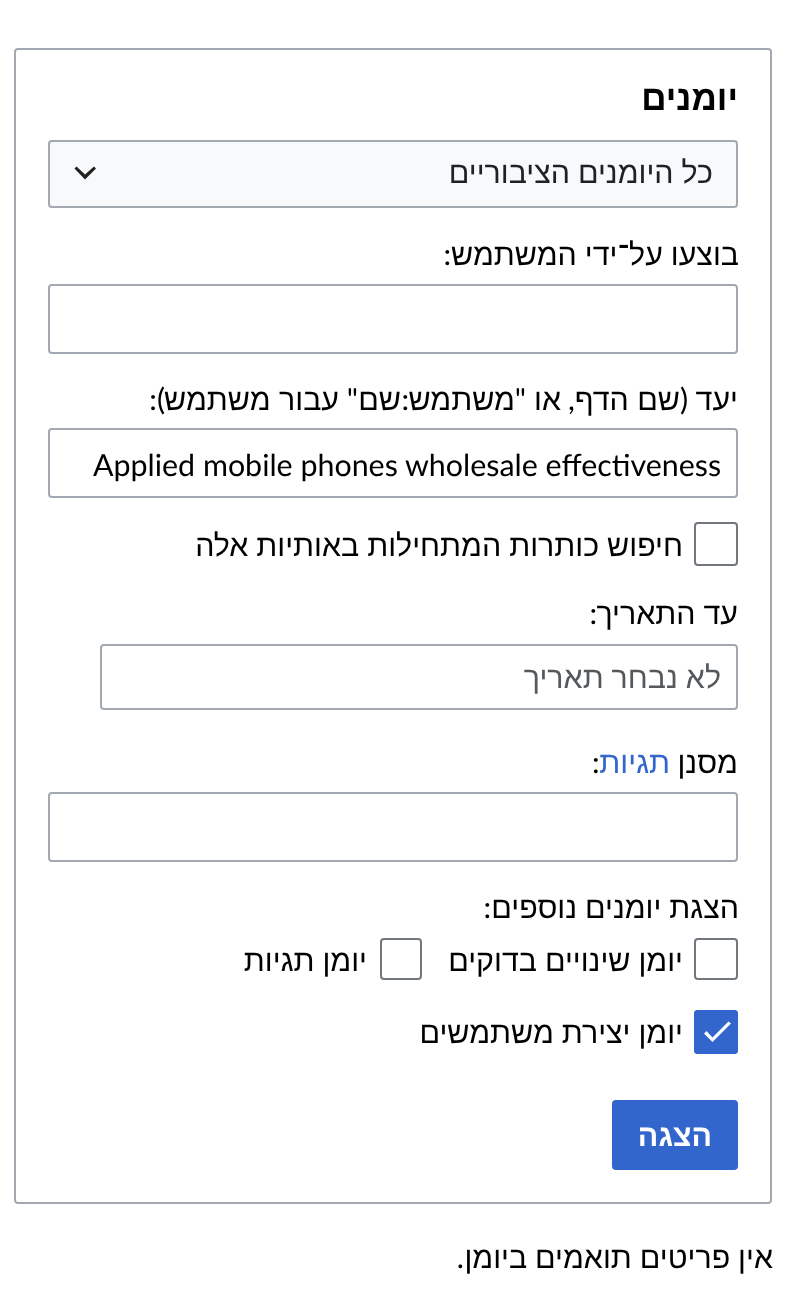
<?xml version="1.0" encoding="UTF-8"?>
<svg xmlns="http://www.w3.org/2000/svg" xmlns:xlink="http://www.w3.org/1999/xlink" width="785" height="1294">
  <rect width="100%" height="100%" fill="#ffffff" />
  <rect x="15" y="49" width="756" height="1154" rx="3" fill="none" stroke="#a2a9b1" stroke-width="2" />
  <rect x="48" y="140" width="690" height="68" fill="#f8f9fa" />
  <rect x="49" y="141" width="688" height="66" rx="3" fill="none" stroke="#a2a9b1" stroke-width="2" />
  <path d="M 94 166.5 l -9 8 l -8.5 -8 l -2 2 l 10.5 11 l 11 -11 z" fill="#202021" />
  <rect x="49" y="285" width="688" height="68" rx="3" fill="none" stroke="#a2a9b1" stroke-width="2" />
  <rect x="49" y="429" width="688" height="68" rx="3" fill="none" stroke="#a2a9b1" stroke-width="2" />
  <rect x="695" y="523" width="42" height="42" rx="3" fill="none" stroke="#72777d" stroke-width="2" />
  <rect x="101" y="645" width="636" height="64" rx="3" fill="none" stroke="#a2a9b1" stroke-width="2" />
  <rect x="49" y="793" width="688" height="68" rx="3" fill="none" stroke="#a2a9b1" stroke-width="2" />
  <rect x="695" y="939" width="42" height="40" rx="3" fill="none" stroke="#72777d" stroke-width="2" />
  <rect x="381" y="939" width="40" height="40" rx="3" fill="none" stroke="#72777d" stroke-width="2" />
  <rect x="694" y="1010" width="44" height="44" rx="4" fill="#3366cc" />
  <path d="M 712.5 1037.5 l -6 -6.5 l -2.5 2.5 l 8.5 8.5 l 18.5 -18.5 l -2.5 -2 z" fill="#ffffff" />
  <rect x="695" y="1011" width="42" height="42" rx="3" fill="none" stroke="#3366cc" stroke-width="2" />
  <rect x="613" y="1101" width="124" height="68" rx="3" fill="#3366cc" stroke="#3366cc" stroke-width="2" />
  <text x="738" y="110" style="font-family: Liberation Sans; font-size: 35px; font-weight: bold; direction: rtl; fill: #000000">יומנים</text>
  <text x="713" y="183" word-spacing="-0.5" style="font-family: Liberation Sans; font-size: 30.4px; direction: rtl; fill: #202122">כל היומנים הציבוריים</text>
  <text x="739" y="265" word-spacing="-0.5" style="font-family: Liberation Sans; font-size: 30.4px; direction: rtl; fill: #000000">בוצעו על־ידי המשתמש</text>
  <text x="451" y="265" style="font-family: Lato; font-size: 30.4px; direction: rtl; fill: #000000">:</text>
  <text x="738" y="410" style="font-family: Liberation Sans; font-size: 30.4px; direction: rtl; fill: #000000">יעד</text>
  <text x="688" y="410" style="font-family: Lato; font-size: 30.4px; direction: rtl; fill: #000000">(</text>
  <text x="680" y="410" style="font-family: Liberation Sans; font-size: 30.4px; direction: rtl; fill: #000000">שם הדף</text>
  <text x="575" y="410" style="font-family: Lato; font-size: 30.4px; direction: rtl; fill: #000000">,</text>
  <text x="561" y="410" style="font-family: Liberation Sans; font-size: 30.4px; direction: rtl; fill: #000000">או</text>
  <text x="526" y="410" style="font-family: Lato; font-size: 30.4px; direction: rtl; fill: #000000">"</text>
  <text x="515" y="410" style="font-family: Liberation Sans; font-size: 30.4px; direction: rtl; fill: #000000">משתמש</text>
  <text x="409" y="410" style="font-family: Lato; font-size: 30.4px; direction: rtl; fill: #000000">:</text>
  <text x="401" y="410" style="font-family: Liberation Sans; font-size: 30.4px; direction: rtl; fill: #000000">שם</text>
  <text x="358" y="410" style="font-family: Lato; font-size: 30.4px; direction: rtl; fill: #000000">"</text>
  <text x="339" y="410" style="font-family: Liberation Sans; font-size: 30.4px; direction: rtl; fill: #000000">עבור משתמש</text>
  <text x="165" y="410" style="font-family: Lato; font-size: 30.4px; direction: rtl; fill: #000000">):</text>
  <text x="93" y="476" style="font-family: Lato; font-size: 30.4px; fill: #000000">Applied mobile phones wholesale effectiveness</text>
  <text x="683" y="556" word-spacing="-0.5" style="font-family: Liberation Sans; font-size: 30.4px; direction: rtl; fill: #000000">חיפוש כותרות המתחילות באותיות אלה</text>
  <text x="738" y="624" word-spacing="-0.5" style="font-family: Liberation Sans; font-size: 30.4px; direction: rtl; fill: #000000">עד התאריך</text>
  <text x="597" y="624" style="font-family: Lato; font-size: 30.4px; direction: rtl; fill: #000000">:</text>
  <text x="721" y="688" word-spacing="-0.5" style="font-family: Liberation Sans; font-size: 30.4px; direction: rtl; fill: #54595d">לא נבחר תאריך</text>
  <text x="738" y="773" style="font-family: Liberation Sans; font-size: 30.4px; direction: rtl; fill: #000000">מסנן</text>
  <text x="670" y="773" style="font-family: Liberation Sans; font-size: 30.4px; direction: rtl; fill: #3366cc">תגיות</text>
  <text x="592" y="773" style="font-family: Lato; font-size: 30.4px; fill: #000000">:</text>
  <text x="739" y="918" word-spacing="-0.5" style="font-family: Liberation Sans; font-size: 30.4px; direction: rtl; fill: #000000">הצגת יומנים נוספים</text>
  <text x="491" y="918" style="font-family: Lato; font-size: 30.4px; direction: rtl; fill: #000000">:</text>
  <text x="683" y="971" word-spacing="-0.5" style="font-family: Liberation Sans; font-size: 30.4px; direction: rtl; fill: #000000">יומן שינויים בדוקים</text>
  <text x="367" y="971" word-spacing="-0.5" style="font-family: Liberation Sans; font-size: 30.4px; direction: rtl; fill: #000000">יומן תגיות</text>
  <text x="683" y="1043" word-spacing="-0.5" style="font-family: Liberation Sans; font-size: 30.4px; direction: rtl; fill: #000000">יומן יצירת משתמשים</text>
  <text x="712" y="1146" style="font-family: Liberation Sans; font-size: 30.4px; font-weight: bold; direction: rtl; fill: #ffffff">הצגה</text>
  <text x="773" y="1268" word-spacing="-0.5" style="font-family: Liberation Sans; font-size: 30.4px; direction: rtl; fill: #000000">אין פריטים תואמים ביומן</text>
  <text x="464" y="1268" style="font-family: Lato; font-size: 30.4px; direction: rtl; fill: #000000">.</text>
</svg>
